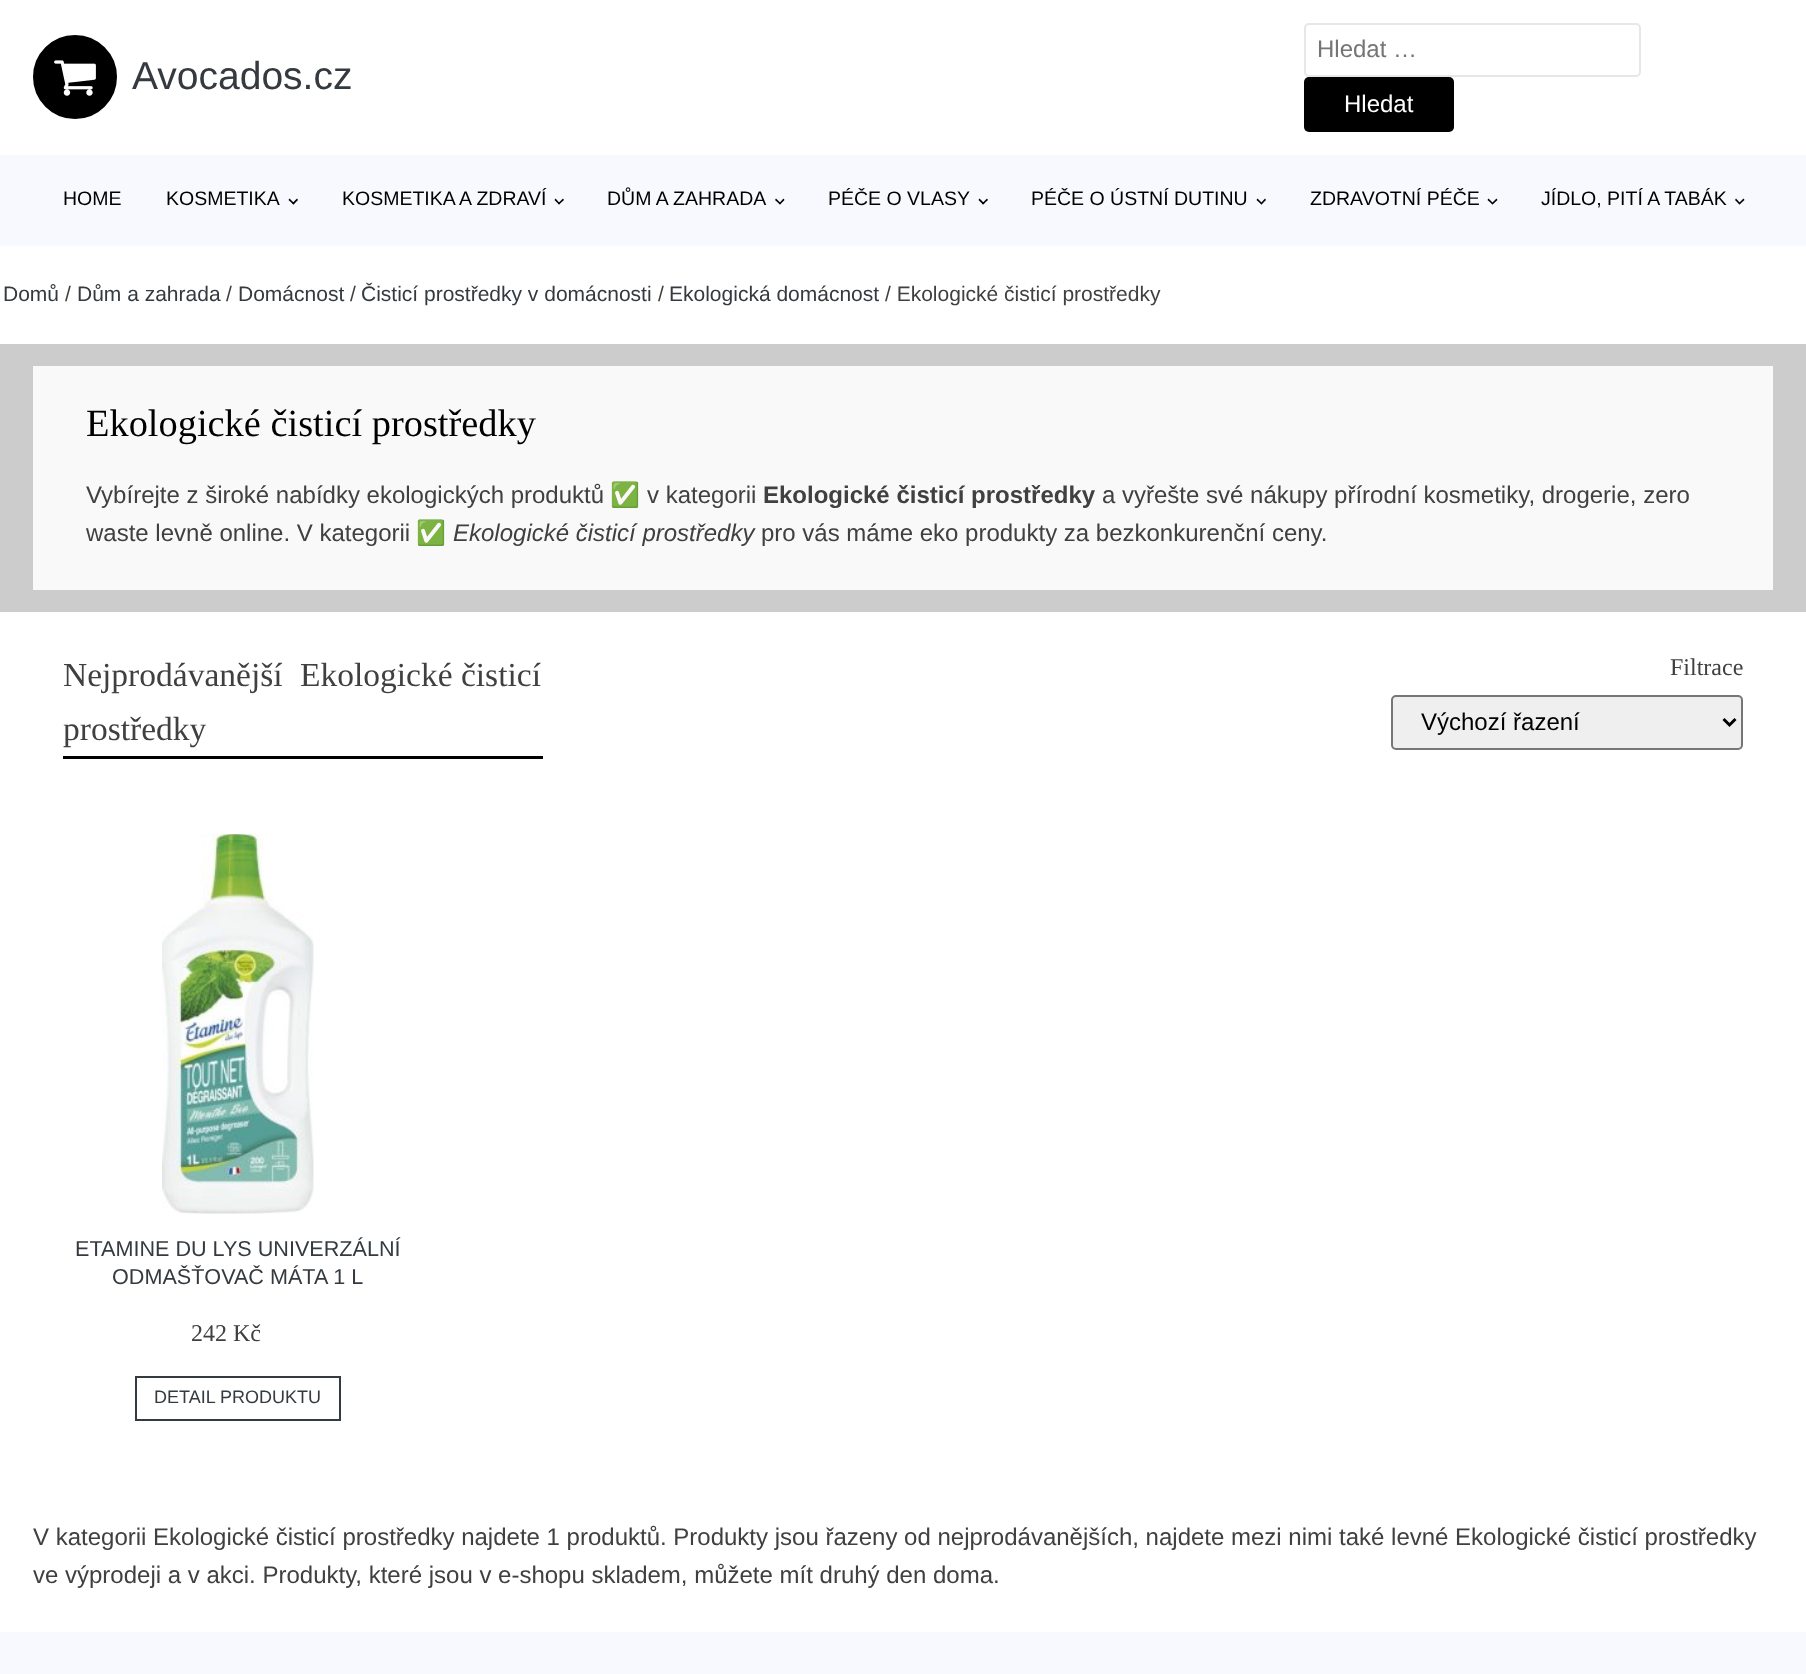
<?xml version="1.0" encoding="UTF-8"?>
<svg xmlns="http://www.w3.org/2000/svg" xmlns:xlink="http://www.w3.org/1999/xlink" width="1806" height="1674">
  <rect width="100%" height="100%" fill="#ffffff" />
  <circle cx="75" cy="77" r="41" fill="#000000" stroke="#000000" stroke-width="2" />
  <image x="54" y="60" width="42" height="36" xlink:href="image1.png" />
  <rect x="1305" y="24" width="335" height="52" rx="4" fill="none" stroke="#e7e7e7" stroke-width="2" />
  <rect x="1304" y="77" width="150" height="55" rx="5" fill="#000000" />
  <rect y="155" width="1806" height="91" fill="#f8f9ff" />
  <path d="M 298 200 l -4.5 4.5 l -1.5 -1 l 5 -5 z" fill="#000000" />
  <path d="M 294.5 203.5 l -1 1 l -5 -4.5 l 1 -1.5 z" fill="#000000" />
  <path d="M 564 200 l -5 4.5 l -1 -1 l 5 -5 z" fill="#000000" />
  <path d="M 560 203.5 l -1 1 l -4.5 -4.5 l 1 -1.5 z" fill="#000000" />
  <path d="M 784.5 200 l -4.5 4.5 l -1 -1 l 4.5 -5 z" fill="#000000" />
  <path d="M 781 203.5 l -1 1 l -5 -4.5 l 1 -1.5 z" fill="#000000" />
  <path d="M 988 200 l -5 4.5 l -1 -1 l 5 -5 z" fill="#000000" />
  <path d="M 984.5 203.5 l -1.5 1 l -4.5 -4.5 l 1 -1.5 z" fill="#000000" />
  <path d="M 1266 200 l -4.5 4.5 l -1 -1 l 4.5 -5 z" fill="#000000" />
  <path d="M 1262.5 203.5 l -1 1 l -5 -4.5 l 1 -1.5 z" fill="#000000" />
  <path d="M 1497.5 200 l -5 4.5 l -1 -1 l 5 -5 z" fill="#000000" />
  <path d="M 1493.5 203.5 l -1 1 l -5 -4.5 l 1 -1.5 z" fill="#000000" />
  <path d="M 1744.5 200 l -5 4.5 l -1 -1 l 5 -5 z" fill="#000000" />
  <path d="M 1740.5 203.5 l -1 1 l -4.5 -4.5 l 1 -1.5 z" fill="#000000" />
  <rect y="344" width="1806" height="268" fill="#cccccc" />
  <rect x="33" y="366" width="1740" height="224" fill="#f9f9f9" />
  <rect x="63" y="756" width="480" height="3" fill="#000000" />
  <rect x="1392" y="696" width="350" height="53" rx="4" fill="#efefef" stroke="#767676" stroke-width="2" />
  <path d="M 1723.5 719 l 6 6 l 6 -6" fill="none" stroke="#000000" stroke-width="3" />
  <image x="162" y="834" width="152" height="380" xlink:href="image2.png" />
  <rect x="136" y="1377" width="204" height="43" fill="none" stroke="#343a3f" stroke-width="2" />
  <rect y="1632" width="1806" height="42" fill="#f8f9ff" />
  <text x="132" y="89" style="font-family: Liberation Sans; font-size: 39px; fill: #343a3f">Avocados.cz</text>
  <text x="1317" y="57" style="font-family: Liberation Sans; font-size: 24px; fill: #757575">Hledat …</text>
  <text x="1344" y="112" style="font-family: Liberation Sans; font-size: 24px; fill: #ffffff">Hledat</text>
  <text x="63" y="205" style="font-family: Liberation Sans; font-size: 19.5px; fill: #000000">HOME</text>
  <text x="166" y="205" style="font-family: Liberation Sans; font-size: 19.5px; fill: #000000">KOSMETIKA</text>
  <text x="342" y="205" style="font-family: Liberation Sans; font-size: 19.5px; fill: #000000">KOSMETIKA A ZDRAVÍ</text>
  <text x="607" y="205" style="font-family: Liberation Sans; font-size: 19.5px; fill: #000000">DŮM A ZAHRADA</text>
  <text x="828" y="205" style="font-family: Liberation Sans; font-size: 19.5px; fill: #000000">PÉČE O VLASY</text>
  <text x="1031" y="205" style="font-family: Liberation Sans; font-size: 19.5px; fill: #000000">PÉČE O ÚSTNÍ DUTINU</text>
  <text x="1310" y="205" style="font-family: Liberation Sans; font-size: 19.5px; fill: #000000">ZDRAVOTNÍ PÉČE</text>
  <text x="1541" y="205" style="font-family: Liberation Sans; font-size: 19.5px; fill: #000000">JÍDLO, PITÍ A TABÁK</text>
  <text x="3" y="301" style="font-family: Liberation Sans; font-size: 21px; fill: #343a3f">Domů</text>
  <text x="65" y="301" style="font-family: Liberation Sans; font-size: 21px; fill: #404040">/</text>
  <text x="77" y="301" style="font-family: Liberation Sans; font-size: 21px; fill: #343a3f">Dům a zahrada</text>
  <text x="226" y="301" style="font-family: Liberation Sans; font-size: 21px; fill: #404040">/</text>
  <text x="238" y="301" style="font-family: Liberation Sans; font-size: 21px; fill: #343a3f">Domácnost</text>
  <text x="350" y="301" style="font-family: Liberation Sans; font-size: 21px; fill: #404040">/</text>
  <text x="361" y="301" style="font-family: Liberation Sans; font-size: 21px; fill: #343a3f">Čisticí prostředky v domácnosti</text>
  <text x="658" y="301" style="font-family: Liberation Sans; font-size: 21px; fill: #404040">/</text>
  <text x="669" y="301" style="font-family: Liberation Sans; font-size: 21px; fill: #343a3f">Ekologická domácnost</text>
  <text x="885" y="301" style="font-family: Liberation Sans; font-size: 21px; fill: #404040">/ Ekologické čisticí prostředky</text>
  <text x="86" y="436" style="font-family: Liberation Serif; font-size: 38.4px; fill: #000000">Ekologické čisticí prostředky</text>
  <text x="86" y="503" style="font-family: Liberation Sans; font-size: 24px; fill: #404040">Vybírejte z široké nabídky ekologických produktů</text>
  <text x="610" y="503" style="font-family: Noto Color Emoji; font-size: 24px; fill: #404040">✅</text>
  <text x="647" y="503" style="font-family: Liberation Sans; font-size: 24px; fill: #404040">v kategorii</text>
  <text x="763" y="503" style="font-family: Liberation Sans; font-size: 24px; font-weight: bold; fill: #404040">Ekologické čisticí prostředky</text>
  <text x="1102" y="503" style="font-family: Liberation Sans; font-size: 24px; fill: #404040">a vyřešte své nákupy přírodní kosmetiky, drogerie, zero</text>
  <text x="86" y="541" style="font-family: Liberation Sans; font-size: 24px; fill: #404040">waste levně online. V kategorii</text>
  <text x="416" y="541" style="font-family: Noto Color Emoji; font-size: 24px; fill: #404040">✅</text>
  <text x="453" y="541" style="font-family: Liberation Sans; font-size: 24px; font-style: italic; fill: #404040">Ekologické čisticí prostředky</text>
  <text x="761" y="541" style="font-family: Liberation Sans; font-size: 24px; fill: #404040">pro vás máme eko produkty za bezkonkurenční ceny.</text>
  <text x="63" y="686" style="font-family: Liberation Serif; font-size: 33.5px; fill: #404040">Nejprodávanější</text>
  <text x="300" y="686" style="font-family: Liberation Serif; font-size: 33.5px; fill: #404040">Ekologické čisticí</text>
  <text x="63" y="740" style="font-family: Liberation Serif; font-size: 33.5px; fill: #404040">prostředky</text>
  <text x="1670" y="675" style="font-family: Liberation Serif; font-size: 24px; fill: #404040">Filtrace</text>
  <text x="1421" y="730" style="font-family: Liberation Sans; font-size: 24px; fill: #000000">Výchozí řazení</text>
  <text x="75" y="1256" style="font-family: Liberation Sans; font-size: 21.6px; fill: #343a3f">ETAMINE DU LYS UNIVERZÁLNÍ</text>
  <text x="112" y="1284" style="font-family: Liberation Sans; font-size: 21.6px; fill: #343a3f">ODMAŠŤOVAČ MÁTA 1 L</text>
  <text x="191" y="1341" style="font-family: Liberation Serif; font-size: 24px; fill: #404040">242 Kč</text>
  <text x="154" y="1403" style="font-family: Liberation Sans; font-size: 18px; fill: #343a3f">DETAIL PRODUKTU</text>
  <text x="33" y="1545" style="font-family: Liberation Sans; font-size: 24px; fill: #404040">V kategorii Ekologické čisticí prostředky najdete 1 produktů. Produkty jsou řazeny od nejprodávanějších, najdete mezi nimi také levné Ekologické čisticí prostředky</text>
  <text x="33" y="1583" style="font-family: Liberation Sans; font-size: 24px; fill: #404040">ve výprodeji a v akci. Produkty, které jsou v e-shopu skladem, můžete mít druhý den doma.</text>
</svg>
